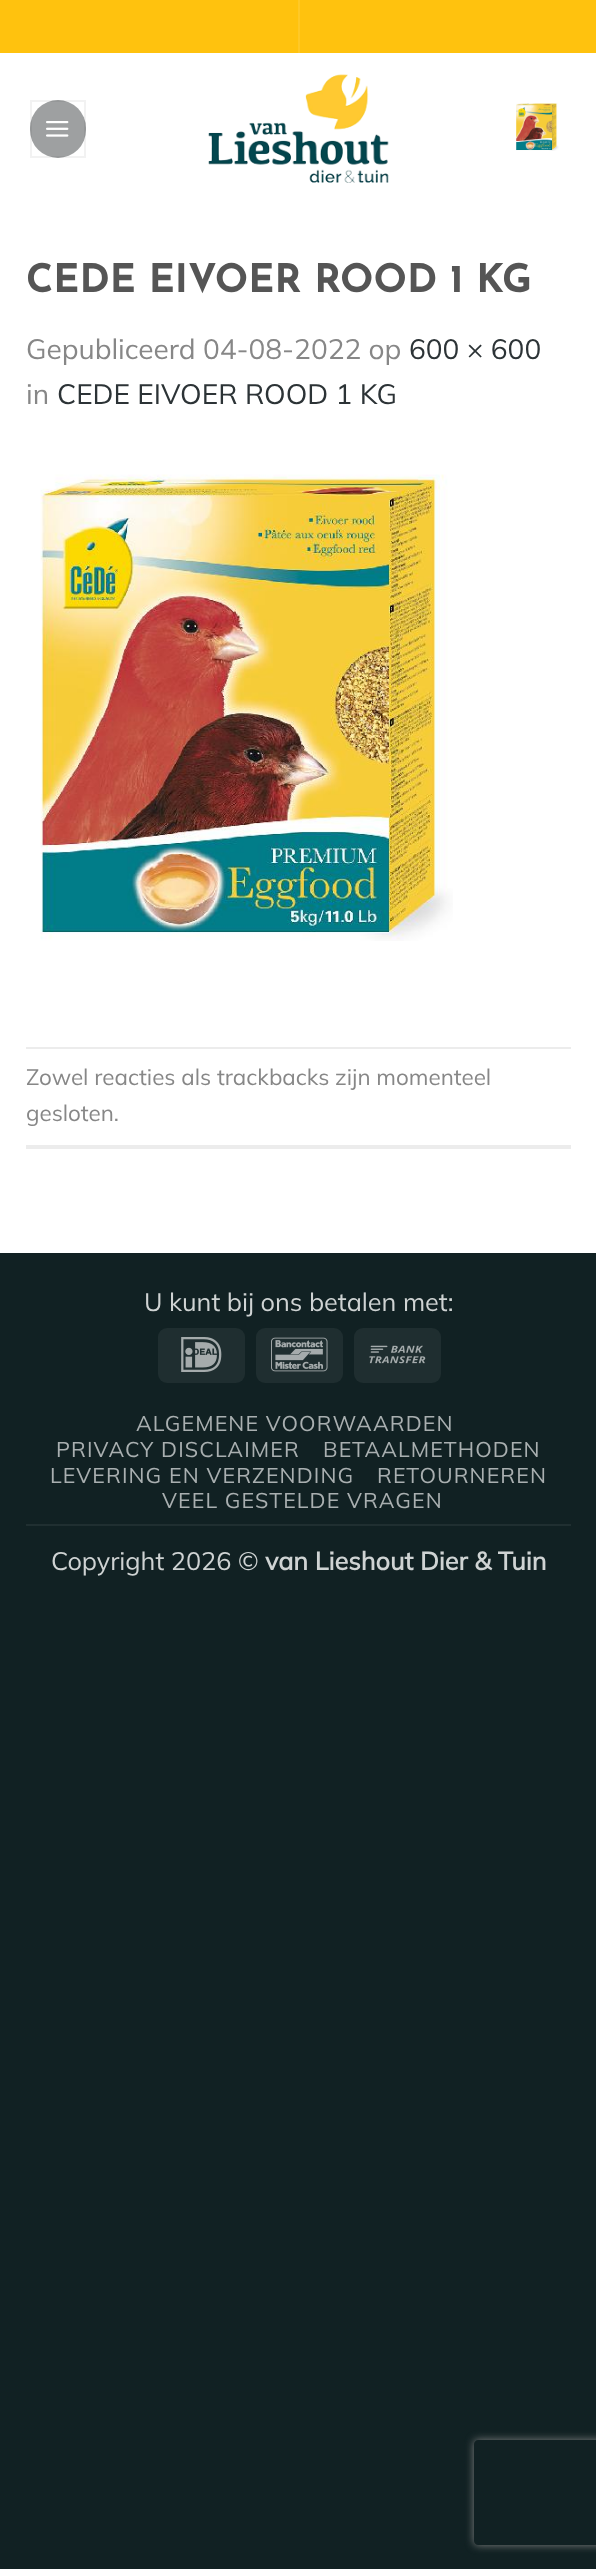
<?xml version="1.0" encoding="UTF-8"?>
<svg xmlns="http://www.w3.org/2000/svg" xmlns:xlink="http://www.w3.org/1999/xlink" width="596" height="2569">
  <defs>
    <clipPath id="clip1"><path d="M 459 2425 h 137 v 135 h -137 z m 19 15 h 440 c 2 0 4 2 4 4 v 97 c 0 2 -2 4 -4 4 h -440 c -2 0 -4 -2 -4 -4 v -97 c 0 -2 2 -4 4 -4 z" clip-rule="evenodd" /></clipPath>
  </defs>
  <rect width="100%" height="100%" fill="#112123" />
  <rect y="53" width="596" height="1200" fill="#ffffff" />
  <rect width="596" height="53" fill="#ffc20e" />
  <rect x="298" width="2" height="53" fill="#ffc826" />
  <rect x="30" y="100" width="56" height="58" rx="28" fill="#9ea0a1" />
  <rect x="31" y="101" width="54" height="56" fill="none" stroke="#000000" stroke-opacity="0.05" stroke-width="2" />
  <image x="46" y="121" width="23" height="16" xlink:href="image1.png" />
  <image x="208" y="74" width="181" height="109" xlink:href="image2.png" />
  <image x="516" y="103" width="43" height="48" xlink:href="image3.png" />
  <image x="40" y="474" width="413" height="467" xlink:href="image4.png" />
  <rect x="26" y="1047" width="545" height="2" fill="#ececec" />
  <rect x="26" y="1145" width="545" height="4" fill="#ececec" />
  <rect x="158" y="1328" width="87" height="55" rx="9" fill="#1f2e30" />
  <image x="181" y="1337" width="41" height="35" xlink:href="image5.png" />
  <rect x="256" y="1328" width="87" height="55" rx="9" fill="#1f2e30" />
  <image x="271" y="1337" width="57" height="35" xlink:href="image6.png" />
  <rect x="354" y="1328" width="87" height="55" rx="9" fill="#1f2e30" />
  <image x="369" y="1345" width="57" height="19" xlink:href="image7.png" />
  <rect x="26" y="1524" width="545" height="2" fill="#202f31" />
  <g clip-path="url(#clip1)">
    <rect x="474" y="2440" width="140" height="105" rx="4" fill="#808080" filter="blur(4.5px)" />
  </g>
  <text x="26" y="292" style="font-family: Josefin Sans; font-size: 39.25px; font-weight: bold; fill: #555555">CEDE EIVOER ROOD 1 KG</text>
  <text x="26" y="359" style="font-family: Mulish; font-size: 28px; font-weight: 200; fill: #878787">Gepubliceerd 04-08-2022 op</text>
  <text x="409" y="359" style="font-family: Mulish; font-size: 28px; font-weight: 200; fill: #2c3336">600 × 600</text>
  <text x="26" y="404" style="font-family: Mulish; font-size: 28px; font-weight: 200; fill: #878787">in</text>
  <text x="57" y="404" style="font-family: Mulish; font-size: 28px; font-weight: 200; fill: #2c3336">CEDE EIVOER ROOD 1 KG</text>
  <text x="26" y="1085" style="font-family: Mulish; font-size: 22.4px; font-weight: 200; fill: #878787">Zowel reacties als trackbacks zijn momenteel</text>
  <text x="26" y="1121" style="font-family: Mulish; font-size: 22.4px; font-weight: 200; fill: #878787">gesloten.</text>
  <text x="144" y="1311" style="font-family: Mulish; font-size: 25.25px; font-weight: 200; fill: #cfd3d3">U kunt bij ons betalen met:</text>
  <text x="136" y="1431" style="font-family: Mulish; font-size: 21.4px; font-weight: 200; letter-spacing: 1.1px; fill: #a9afb0">ALGEMENE VOORWAARDEN</text>
  <text x="56" y="1457" style="font-family: Mulish; font-size: 21.4px; font-weight: 200; letter-spacing: 1.1px; fill: #a9afb0">PRIVACY DISCLAIMER</text>
  <text x="323" y="1457" style="font-family: Mulish; font-size: 21.4px; font-weight: 200; letter-spacing: 1.1px; fill: #a9afb0">BETAALMETHODEN</text>
  <text x="50" y="1483" style="font-family: Mulish; font-size: 21.4px; font-weight: 200; letter-spacing: 1.1px; fill: #a9afb0">LEVERING EN VERZENDING</text>
  <text x="377" y="1483" style="font-family: Mulish; font-size: 21.4px; font-weight: 200; letter-spacing: 1.1px; fill: #a9afb0">RETOURNEREN</text>
  <text x="162" y="1508" style="font-family: Mulish; font-size: 21.4px; font-weight: 200; letter-spacing: 1.1px; fill: #a9afb0">VEEL GESTELDE VRAGEN</text>
  <text x="51" y="1570" style="font-family: Mulish; font-size: 25.25px; font-weight: 200; fill: #cfd3d3">Copyright 2026 ©</text>
  <text x="265" y="1570" style="font-family: Mulish; font-size: 25.25px; font-weight: bold; fill: #cfd3d3">van Lieshout Dier &amp; Tuin</text>
</svg>
